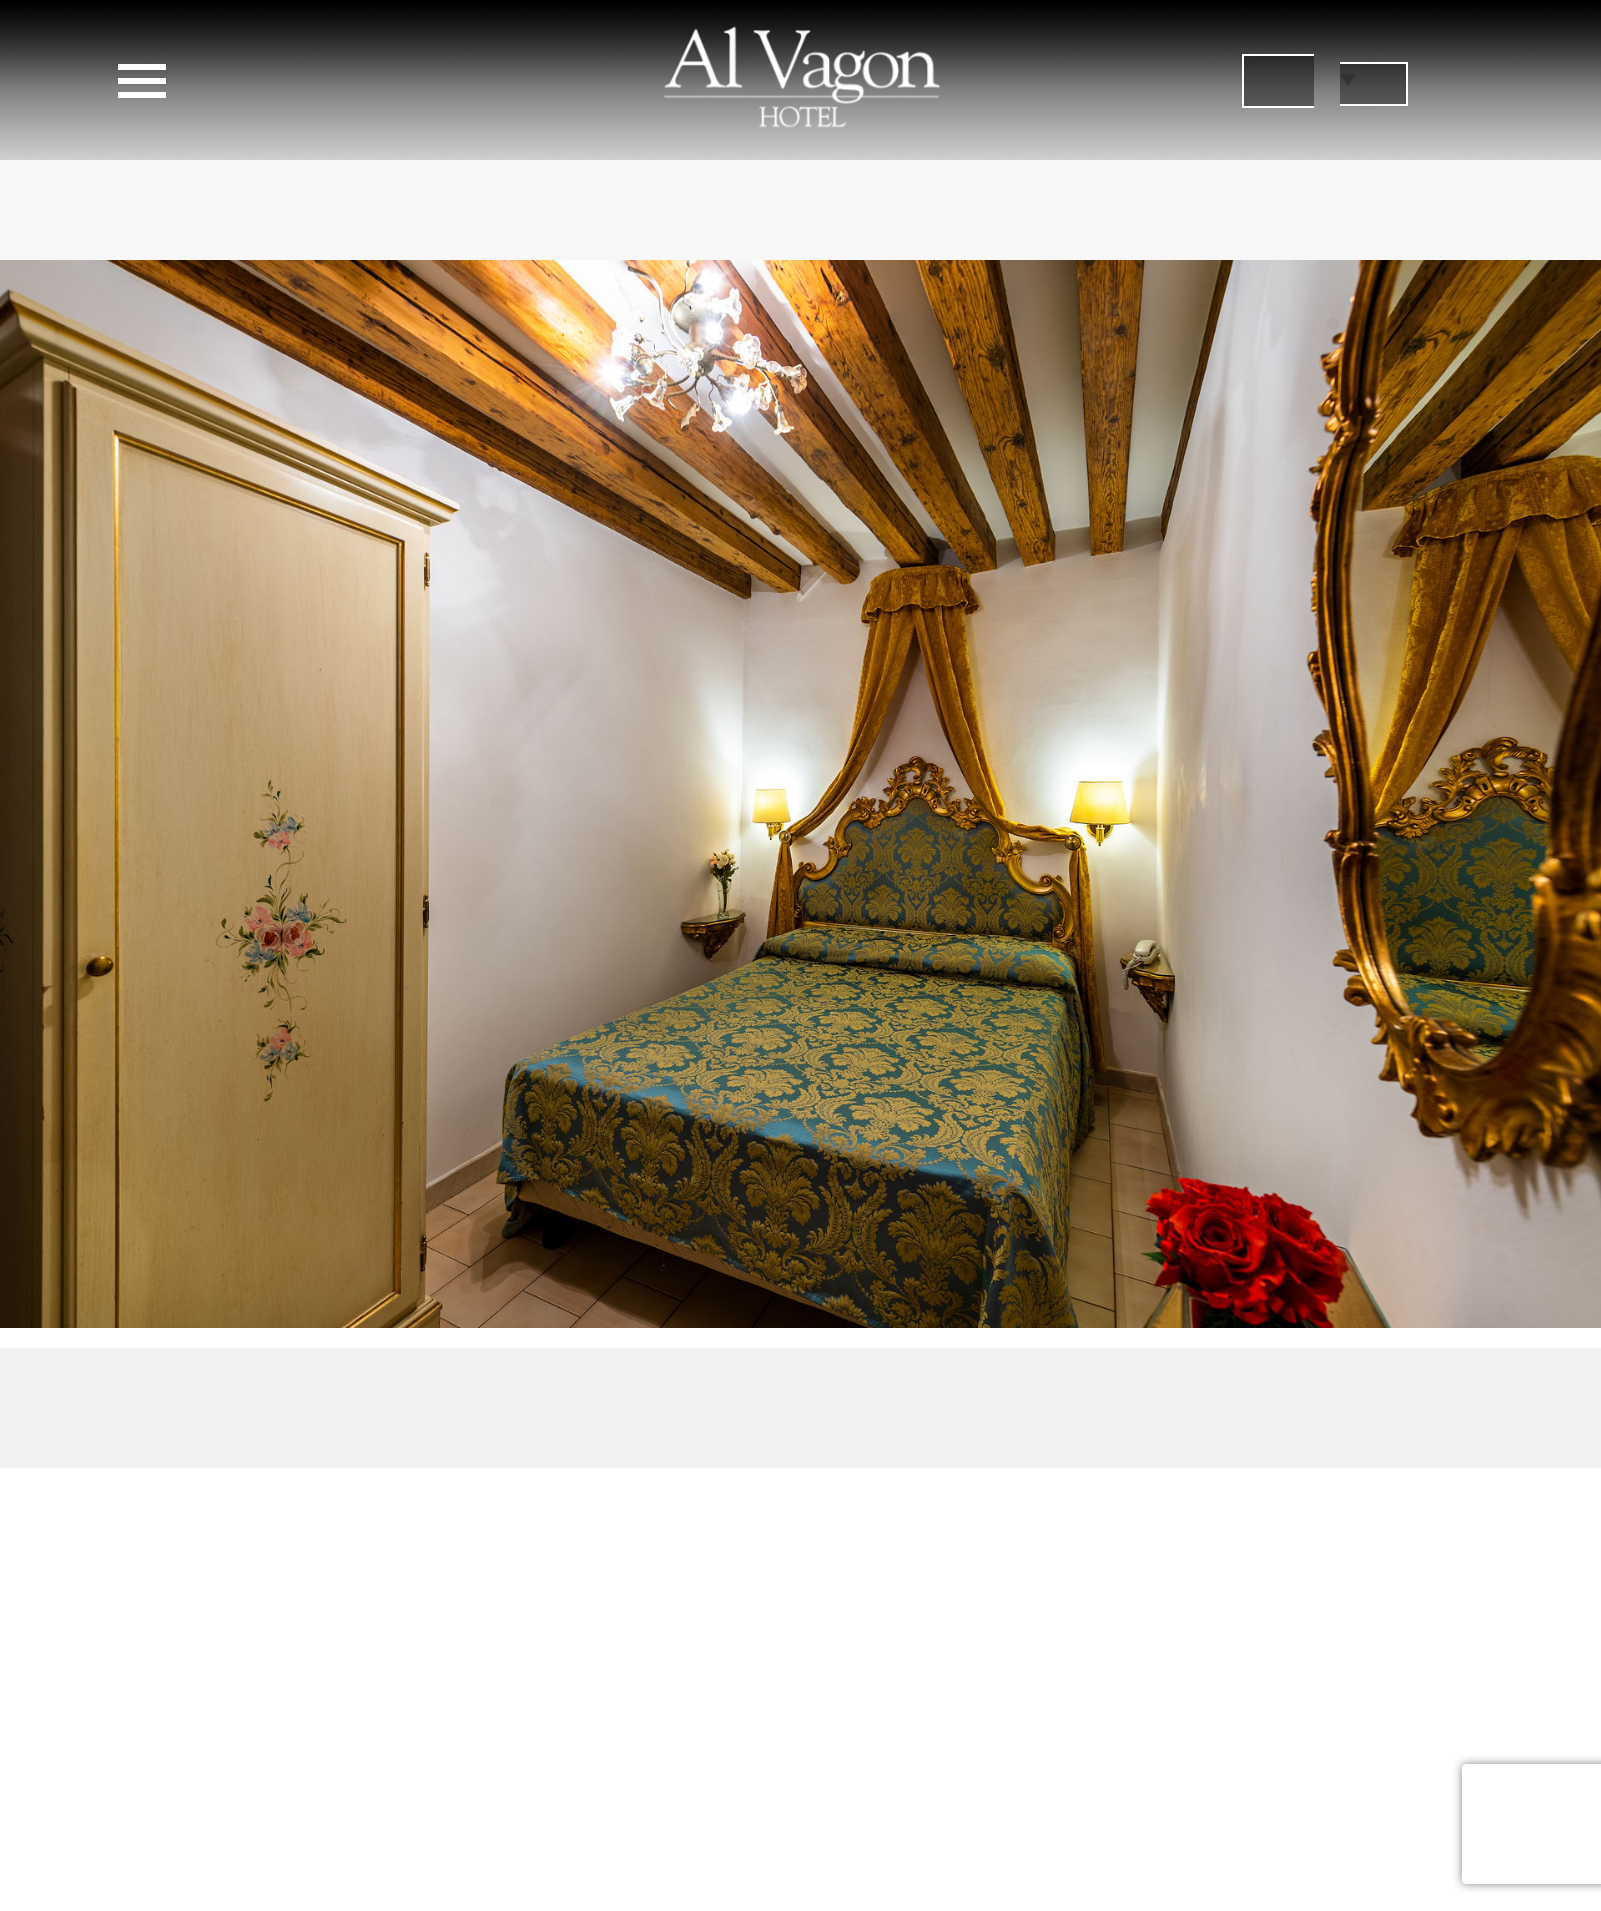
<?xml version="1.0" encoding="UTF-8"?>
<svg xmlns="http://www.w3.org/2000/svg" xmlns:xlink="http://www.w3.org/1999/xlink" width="1601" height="1911">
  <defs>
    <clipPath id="clip1"><path d="M 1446 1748 h 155 v 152 h -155 z m 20 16 h 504 c 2 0 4 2 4 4 v 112 c 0 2 -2 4 -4 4 h -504 c -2 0 -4 -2 -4 -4 v -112 c 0 -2 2 -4 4 -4 z" clip-rule="evenodd" /></clipPath>
  </defs>
  <rect width="100%" height="100%" fill="#ffffff" />
  <image x="0" y="0" width="1601" height="160" xlink:href="image1.png" />
  <rect x="118" y="64" width="48" height="6" fill="#ffffff" />
  <rect x="118" y="78" width="48" height="6" fill="#ffffff" />
  <rect x="118" y="92" width="48" height="6" fill="#ffffff" />
  <image x="664" y="26" width="277" height="102" xlink:href="image2.png" />
  <rect x="1244" y="56" width="70" height="50" fill="#000000" fill-opacity="0.4" />
  <rect x="1242" y="54" width="72" height="2" fill="#ffffff" />
  <rect x="1242" y="106" width="72" height="2" fill="#ffffff" />
  <rect x="1242" y="54" width="2" height="54" fill="#ffffff" />
  <rect x="1340" y="64" width="66" height="40" fill="#000000" fill-opacity="0.4" />
  <rect x="1340" y="62" width="68" height="2" fill="#ffffff" />
  <rect x="1406" y="62" width="2" height="44" fill="#ffffff" />
  <rect x="1340" y="104" width="68" height="2" fill="#ffffff" />
  <path d="M 1340 74 h 16 l -8 12 z" fill="#333333" />
  <rect y="160" width="1601" height="100" fill="#f7f7f7" />
  <image x="0" y="260" width="1601" height="1068" xlink:href="image3.png" />
  <rect y="1348" width="1601" height="120" fill="#f2f2f2" />
  <g clip-path="url(#clip1)">
    <rect x="1462" y="1764" width="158" height="120" rx="4" fill="#808080" filter="blur(5px)" />
  </g>
</svg>
